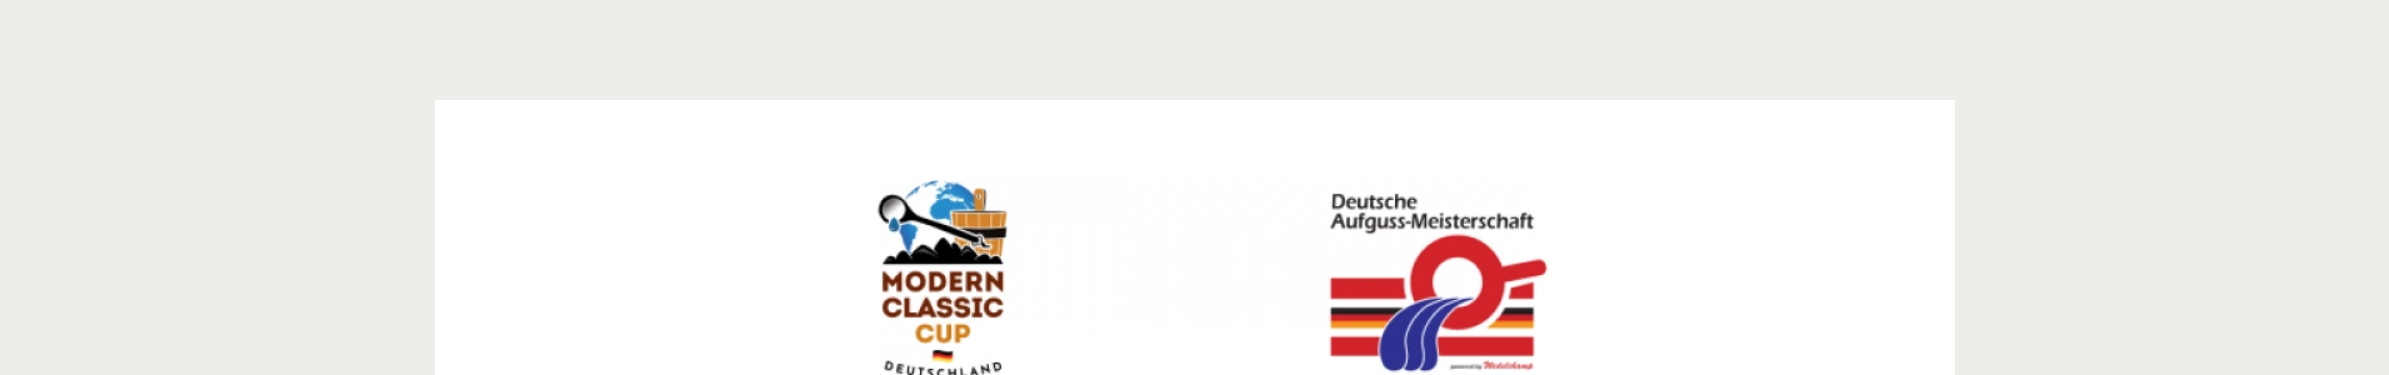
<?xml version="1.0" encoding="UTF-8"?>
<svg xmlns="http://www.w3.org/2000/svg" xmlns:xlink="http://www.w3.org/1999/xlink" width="2389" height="375">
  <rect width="100%" height="100%" fill="#ededea" />
  <rect x="435" y="100" width="1520" height="275" fill="#ffffff" />
  <image x="877" y="178" width="672" height="197" xlink:href="image1.png" />
</svg>
